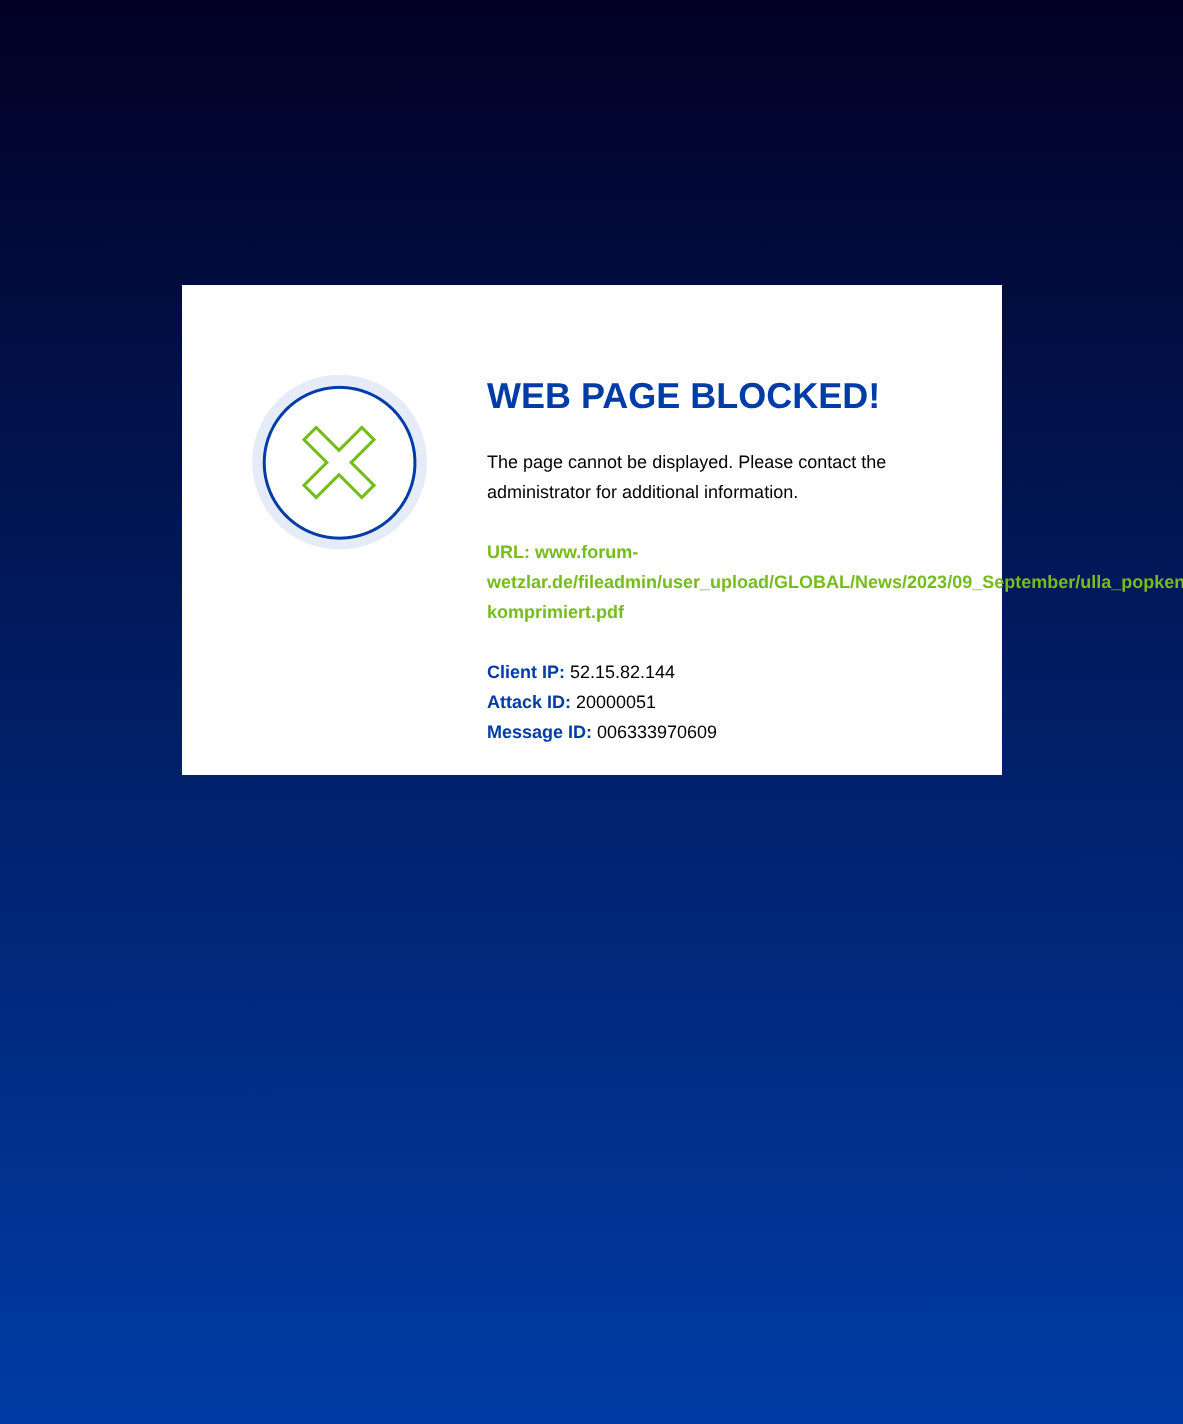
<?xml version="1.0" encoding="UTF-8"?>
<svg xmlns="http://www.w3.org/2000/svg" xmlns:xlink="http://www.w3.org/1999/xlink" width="1183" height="1424">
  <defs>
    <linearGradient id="g1" gradientUnits="userSpaceOnUse" x1="591" y1="0" x2="592" y2="1424"><stop offset="0" stop-color="#020024" /><stop offset="1" stop-color="#003ca6" /></linearGradient>
  </defs>
  <rect width="100%" height="100%" fill="#ffffff" />
  <rect width="1183" height="1424" fill="url(#g1)" />
  <rect x="182" y="285" width="820" height="490" fill="#ffffff" />
  <image x="252" y="375" width="175" height="175" xlink:href="image1.png" />
  <text x="487" y="408" style="font-family: Liberation Sans; font-size: 36px; font-weight: bold; fill: #003ca6">WEB PAGE BLOCKED!</text>
  <text x="487" y="468" style="font-family: Liberation Sans; font-size: 18px; fill: #000000">The page cannot be displayed. Please contact the</text>
  <text x="487" y="498" style="font-family: Liberation Sans; font-size: 18px; fill: #000000">administrator for additional information.</text>
  <text x="487" y="558" style="font-family: Liberation Sans; font-size: 18px; font-weight: bold; fill: #77bc1f">URL: www.forum-</text>
  <text x="487" y="588" style="font-family: Liberation Sans; font-size: 18px; font-weight: bold; fill: #77bc1f">wetzlar.de/fileadmin/user_upload/GLOBAL/News/2023/09_September/ulla_popken</text>
  <text x="487" y="618" style="font-family: Liberation Sans; font-size: 18px; font-weight: bold; fill: #77bc1f">komprimiert.pdf</text>
  <text x="487" y="678" style="font-family: Liberation Sans; font-size: 18px; font-weight: bold; fill: #003ca6">Client IP:</text>
  <text x="570" y="678" style="font-family: Liberation Sans; font-size: 18px; fill: #000000">52.15.82.144</text>
  <text x="487" y="708" style="font-family: Liberation Sans; font-size: 18px; font-weight: bold; fill: #003ca6">Attack ID:</text>
  <text x="576" y="708" style="font-family: Liberation Sans; font-size: 18px; fill: #000000">20000051</text>
  <text x="487" y="738" style="font-family: Liberation Sans; font-size: 18px; font-weight: bold; fill: #003ca6">Message ID:</text>
  <text x="597" y="738" style="font-family: Liberation Sans; font-size: 18px; fill: #000000">006333970609</text>
</svg>
